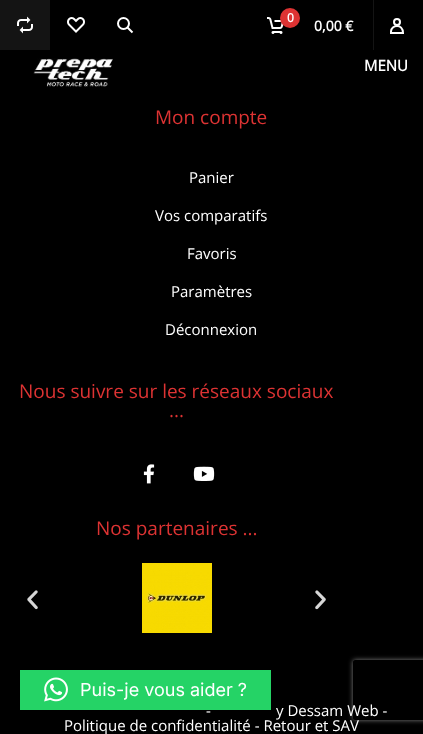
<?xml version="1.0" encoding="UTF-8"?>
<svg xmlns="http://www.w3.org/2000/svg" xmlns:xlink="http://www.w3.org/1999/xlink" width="423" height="734">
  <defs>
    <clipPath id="clip1"><path d="M 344 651 h 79 v 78 h -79 z m 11 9 h 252 c 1 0 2 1 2 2 v 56 c 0 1 -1 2 -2 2 h -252 c -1 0 -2 -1 -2 -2 v -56 c 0 -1 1 -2 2 -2 z" clip-rule="evenodd" /></clipPath>
  </defs>
  <rect width="100%" height="100%" fill="#000000" />
  <rect width="50" height="50" fill="#141414" />
  <image x="17" y="16" width="16" height="18" xlink:href="image1.png" />
  <image x="67" y="17" width="18" height="16" xlink:href="image2.png" />
  <path d="M 127 27 l 5.5 5.5" fill="none" stroke="#ffffff" stroke-width="2" />
  <circle cx="123.5" cy="23.5" r="5.5" fill="none" stroke="#ffffff" stroke-width="2" />
  <image x="267" y="17" width="17" height="17" xlink:href="image3.png" />
  <circle cx="290" cy="18" r="10" fill="#dd3333" />
  <rect x="373" width="1" height="50" fill="#141414" />
  <path d="M 391 31.5 c 0 -6.5 12 -8.5 12 1.5 h -12 z" fill="none" stroke="#ffffff" stroke-width="2" />
  <circle cx="397" cy="22" r="3" fill="none" stroke="#ffffff" stroke-width="2" />
  <image x="33" y="58" width="80" height="29" xlink:href="image4.png" />
  <image x="143" y="464" width="12" height="20" xlink:href="image5.png" />
  <image x="193" y="466" width="22" height="15" xlink:href="image6.png" />
  <image x="27" y="590" width="11" height="20" xlink:href="image7.png" />
  <image x="142" y="563" width="70" height="70" xlink:href="image8.png" />
  <image x="315" y="590" width="11" height="20" xlink:href="image9.png" />
  <rect x="20" y="672" width="251" height="40" fill="#000000" fill-opacity="0.16" filter="blur(16px)" />
  <rect x="20" y="670" width="251" height="40" fill="#25d366" />
  <image x="44" y="677" width="24" height="25" xlink:href="image10.png" />
  <g clip-path="url(#clip1)">
    <rect x="353" y="660" width="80" height="60" rx="2" fill="#808080" filter="blur(2.5px)" />
  </g>
  <text x="287" y="22" style="font-family: Open Sans; font-size: 12px; font-weight: bold; fill: #ffffff">0</text>
  <text x="314" y="31" style="font-family: Open Sans; font-size: 14px; font-weight: bold; fill: #ffffff">0,00 €</text>
  <text x="364" y="71" style="font-family: Open Sans; font-size: 15px; font-weight: bold; fill: #ffffff">MENU</text>
  <text x="155" y="124" style="font-family: Open Sans; font-size: 19px; fill: #dd3333">Mon compte</text>
  <text x="189" y="183" style="font-family: Open Sans; font-size: 15px; fill: #ffffff">Panier</text>
  <text x="155" y="221" style="font-family: Open Sans; font-size: 15px; fill: #ffffff">Vos comparatifs</text>
  <text x="187" y="259" style="font-family: Open Sans; font-size: 15px; fill: #ffffff">Favoris</text>
  <text x="171" y="297" style="font-family: Open Sans; font-size: 15px; fill: #ffffff">Paramètres</text>
  <text x="165" y="335" style="font-family: Open Sans; font-size: 15px; fill: #ffffff">Déconnexion</text>
  <text x="19" y="398" style="font-family: Open Sans; font-size: 19px; fill: #dd3333">Nous suivre sur les réseaux sociaux</text>
  <text x="169" y="417" style="font-family: Open Sans; font-size: 19px; fill: #dd3333">...</text>
  <text x="96" y="535" style="font-family: Open Sans; font-size: 19px; fill: #dd3333">Nos partenaires ...</text>
  <text x="206" y="716" style="font-family: Open Sans; font-size: 15px; fill: #ffffff">-</text>
  <text x="276" y="716" style="font-family: Open Sans; font-size: 15px; fill: #ffffff">y Dessam Web -</text>
  <text x="64" y="731" style="font-family: Open Sans; font-size: 15px; fill: #ffffff">Politique de confidentialité - Retour et SAV</text>
  <text x="80" y="696" style="font-family: Inter; font-size: 18px; fill: #ffffff">Puis-je vous aider ?</text>
</svg>
